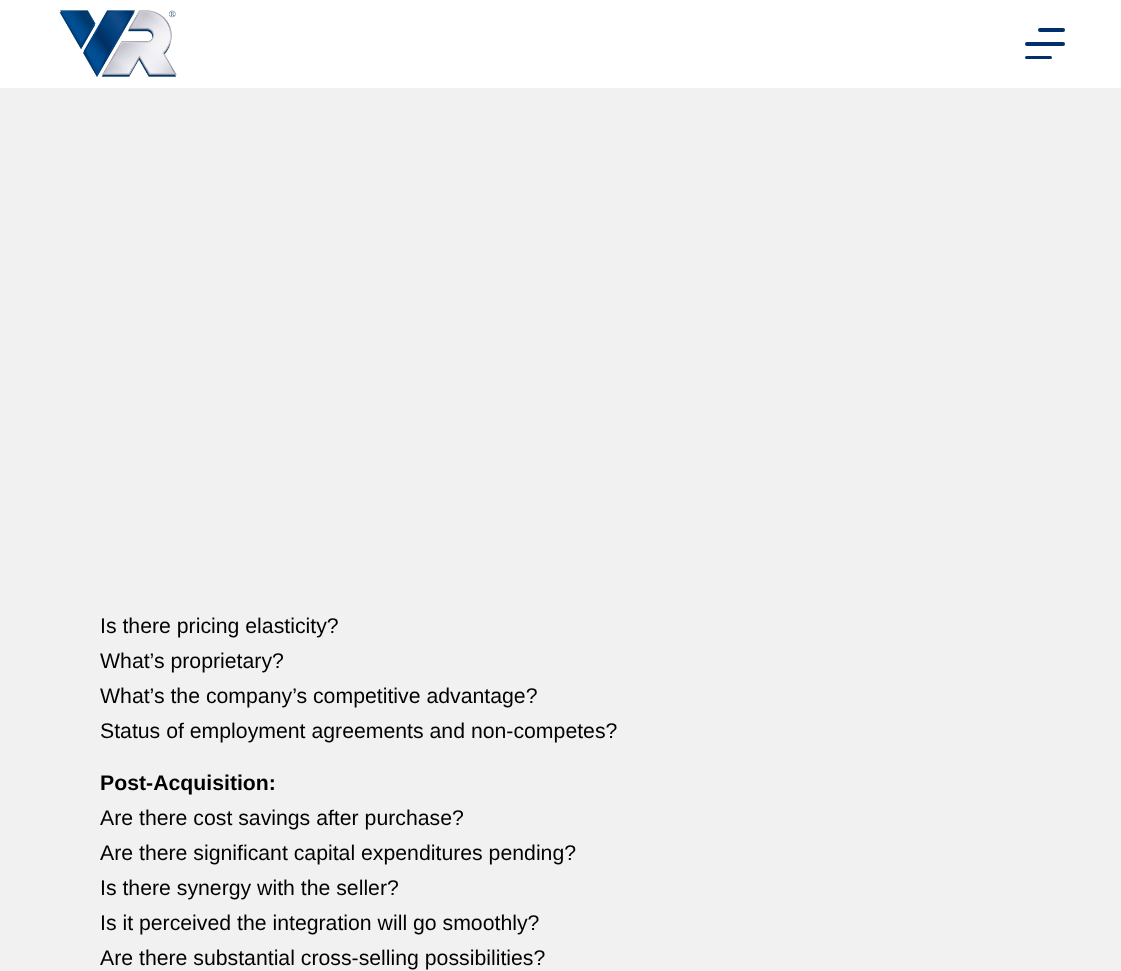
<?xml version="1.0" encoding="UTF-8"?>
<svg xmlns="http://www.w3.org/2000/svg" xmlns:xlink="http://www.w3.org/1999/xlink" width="1121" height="971">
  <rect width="100%" height="100%" fill="#f1f1f2" />
  <rect width="1121" height="88" fill="#ffffff" />
  <image x="59" y="10" width="118" height="67" xlink:href="image1.png" />
  <rect x="1038" y="28" width="27" height="4" rx="2" fill="#002f6c" />
  <rect x="1025" y="42" width="40" height="4" rx="2" fill="#002f6c" />
  <rect x="1025" y="56" width="27" height="3" rx="1.5" fill="#002f6c" />
  <text x="100" y="633" style="font-family: Liberation Sans; font-size: 21.25px; fill: #000000">Is there pricing elasticity?</text>
  <text x="100" y="668" style="font-family: Liberation Sans; font-size: 21.25px; fill: #000000">What’s proprietary?</text>
  <text x="100" y="703" style="font-family: Liberation Sans; font-size: 21.25px; fill: #000000">What’s the company’s competitive advantage?</text>
  <text x="100" y="738" style="font-family: Liberation Sans; font-size: 21.25px; fill: #000000">Status of employment agreements and non-competes?</text>
  <text x="100" y="790" style="font-family: Liberation Sans; font-size: 21.25px; font-weight: bold; fill: #000000">Post-Acquisition:</text>
  <text x="100" y="825" style="font-family: Liberation Sans; font-size: 21.25px; fill: #000000">Are there cost savings after purchase?</text>
  <text x="100" y="860" style="font-family: Liberation Sans; font-size: 21.25px; fill: #000000">Are there significant capital expenditures pending?</text>
  <text x="100" y="895" style="font-family: Liberation Sans; font-size: 21.25px; fill: #000000">Is there synergy with the seller?</text>
  <text x="100" y="930" style="font-family: Liberation Sans; font-size: 21.25px; fill: #000000">Is it perceived the integration will go smoothly?</text>
  <text x="100" y="965" style="font-family: Liberation Sans; font-size: 21.25px; fill: #000000">Are there substantial cross-selling possibilities?</text>
</svg>
